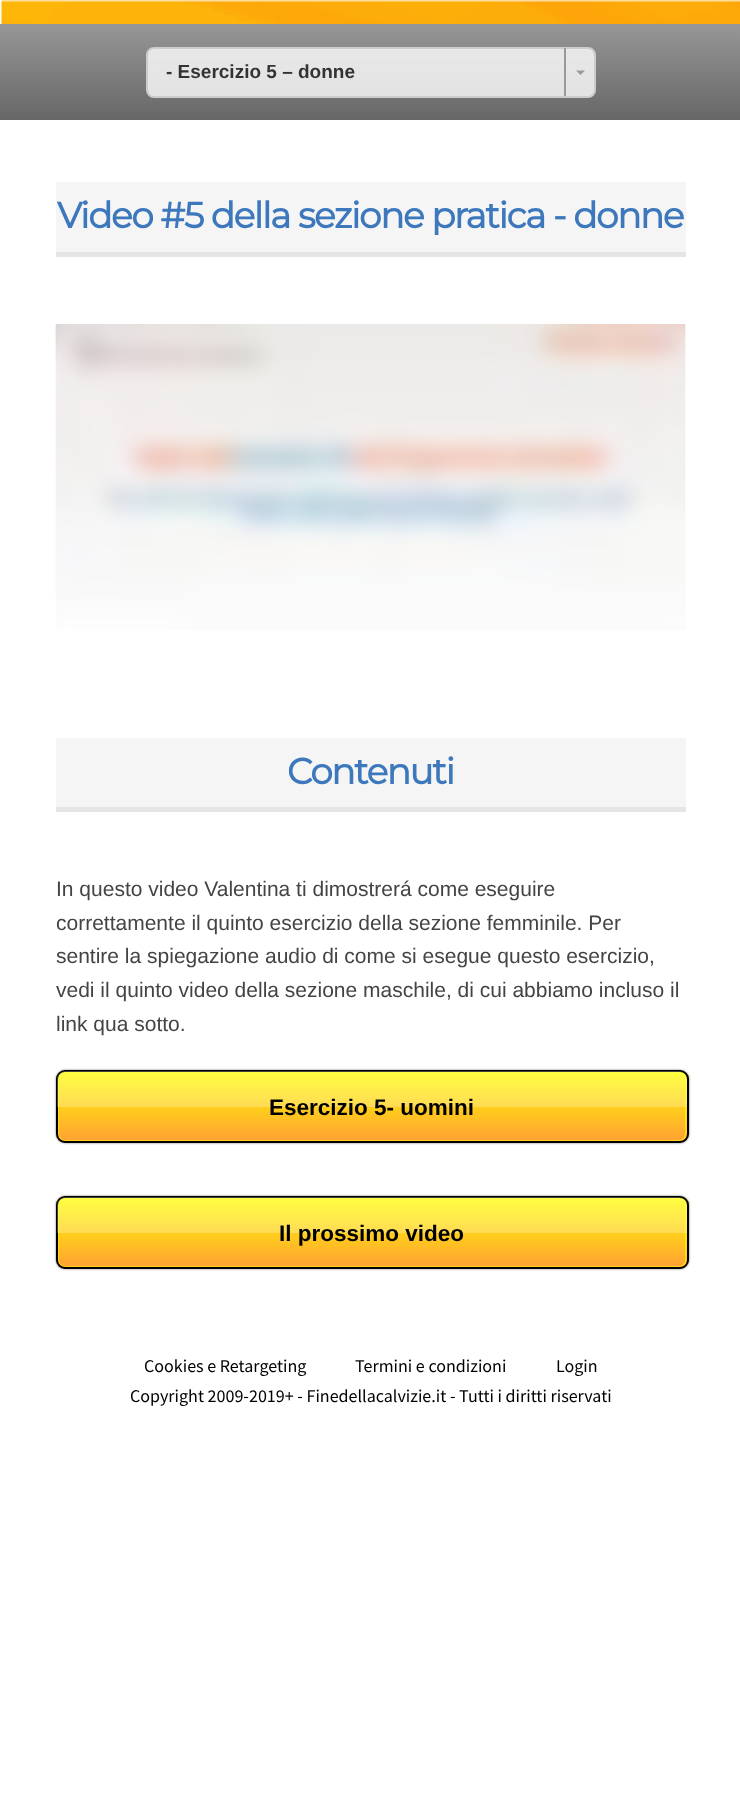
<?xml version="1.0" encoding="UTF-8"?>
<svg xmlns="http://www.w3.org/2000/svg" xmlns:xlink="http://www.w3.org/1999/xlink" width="740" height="1810">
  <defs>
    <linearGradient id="g1" gradientUnits="userSpaceOnUse" x1="371" y1="24" x2="371" y2="120"><stop offset="0" stop-color="#979797" /><stop offset="1" stop-color="#676767" /></linearGradient>
    <clipPath id="clip1"><rect x="56" y="1070" width="633" height="73" rx="9" /></clipPath>
    <linearGradient id="g2" gradientUnits="userSpaceOnUse" x1="372" y1="1071" x2="372" y2="1142"><stop offset="0" stop-color="#ffff00" /><stop offset="1" stop-color="#ffa035" /></linearGradient>
    <clipPath id="clip2"><rect x="56" y="1196" width="633" height="73" rx="9" /></clipPath>
    <linearGradient id="g3" gradientUnits="userSpaceOnUse" x1="372" y1="1197" x2="372" y2="1268"><stop offset="0" stop-color="#ffff00" /><stop offset="1" stop-color="#ffa035" /></linearGradient>
  </defs>
  <rect width="100%" height="100%" fill="#ffffff" />
  <image x="1" y="0" width="739" height="24" xlink:href="image1.png" />
  <rect y="24" width="740" height="96" fill="url(#g1)" />
  <rect x="147" y="48" width="448" height="49" rx="7" fill="#ffffff" fill-opacity="0.8" stroke="#cccccc" stroke-width="2" />
  <rect x="564" y="48" width="2" height="48" fill="#999999" />
  <path d="M 576 70.5 h 9 l -4.5 4.5 z" fill="#999999" />
  <rect x="56" y="182" width="630" height="70" fill="#f5f5f5" />
  <rect x="56" y="252" width="630" height="5" fill="#e5e5e5" />
  <image x="55" y="324" width="631" height="306" xlink:href="image2.png" />
  <rect x="56" y="738" width="630" height="69" fill="#f5f5f5" />
  <rect x="56" y="807" width="630" height="5" fill="#e5e5e5" />
  <rect x="56" y="1070" width="633" height="73" rx="9" fill="#000000" fill-opacity="0.5" filter="blur(1px)" />
  <g clip-path="url(#clip1)">
    <rect x="56" y="1071" width="633" height="71" fill="url(#g2)" />
  </g>
  <rect x="58" y="1072" width="628" height="69" rx="7" fill="none" stroke="#ffff00" stroke-opacity="0.5" stroke-width="2" />
  <rect x="57" y="1071" width="631" height="71" rx="8" fill="none" stroke="#000000" stroke-width="2" />
  <path d="M 66 1071 h 612 c 5 0 9 4 9 9 v 27 h -630 v -27 c 0 -5 4 -9 9 -9 z" fill="#ffffff" fill-opacity="0.25" />
  <rect x="56" y="1196" width="633" height="73" rx="9" fill="#000000" fill-opacity="0.5" filter="blur(1px)" />
  <g clip-path="url(#clip2)">
    <rect x="56" y="1197" width="633" height="71" fill="url(#g3)" />
  </g>
  <rect x="58" y="1198" width="628" height="69" rx="7" fill="none" stroke="#ffff00" stroke-opacity="0.5" stroke-width="2" />
  <rect x="57" y="1197" width="631" height="71" rx="8" fill="none" stroke="#000000" stroke-width="2" />
  <path d="M 66 1197 h 612 c 5 0 9 4 9 9 v 27 h -630 v -27 c 0 -5 4 -9 9 -9 z" fill="#ffffff" fill-opacity="0.25" />
  <text x="166" y="78" style="font-family: Liberation Sans; font-size: 19px; font-weight: bold; fill: #333333">- Esercizio 5 – donne</text>
  <text x="57" y="228" style="font-family: Montserrat; font-size: 36px; font-weight: bold; letter-spacing: -1.5px; fill: #3d78bd">Video #5 della sezione pratica - donne</text>
  <text x="287" y="784" style="font-family: Montserrat; font-size: 36px; font-weight: bold; letter-spacing: -1.5px; fill: #3d78bd">Contenuti</text>
  <text x="56" y="896" style="font-family: Liberation Sans; font-size: 21px; fill: #444444">In questo video Valentina ti dimostrerá come eseguire</text>
  <text x="56" y="930" style="font-family: Liberation Sans; font-size: 21px; fill: #444444">correttamente il quinto esercizio della sezione femminile. Per</text>
  <text x="56" y="963" style="font-family: Liberation Sans; font-size: 21px; fill: #444444">sentire la spiegazione audio di come si esegue questo esercizio,</text>
  <text x="56" y="997" style="font-family: Liberation Sans; font-size: 21px; fill: #444444">vedi il quinto video della sezione maschile, di cui abbiamo incluso il</text>
  <text x="56" y="1031" style="font-family: Liberation Sans; font-size: 21px; fill: #444444">link qua sotto.</text>
  <text x="269" y="1115" style="font-family: Liberation Sans; font-size: 22.5px; font-weight: bold; fill: #000000">Esercizio 5- uomini</text>
  <text x="279" y="1241" style="font-family: Liberation Sans; font-size: 22.5px; font-weight: bold; fill: #000000">Il prossimo video</text>
  <text x="144" y="1372" style="font-family: Source Sans Pro; font-size: 18px; fill: #000000">Cookies e Retargeting</text>
  <text x="355" y="1372" style="font-family: Source Sans Pro; font-size: 18px; fill: #000000">Termini e condizioni</text>
  <text x="556" y="1372" style="font-family: Source Sans Pro; font-size: 18px; fill: #000000">Login</text>
  <text x="130" y="1402" style="font-family: Source Sans Pro; font-size: 18px; fill: #000000">Copyright 2009-2019+ - Finedellacalvizie.it - Tutti i diritti riservati</text>
</svg>
